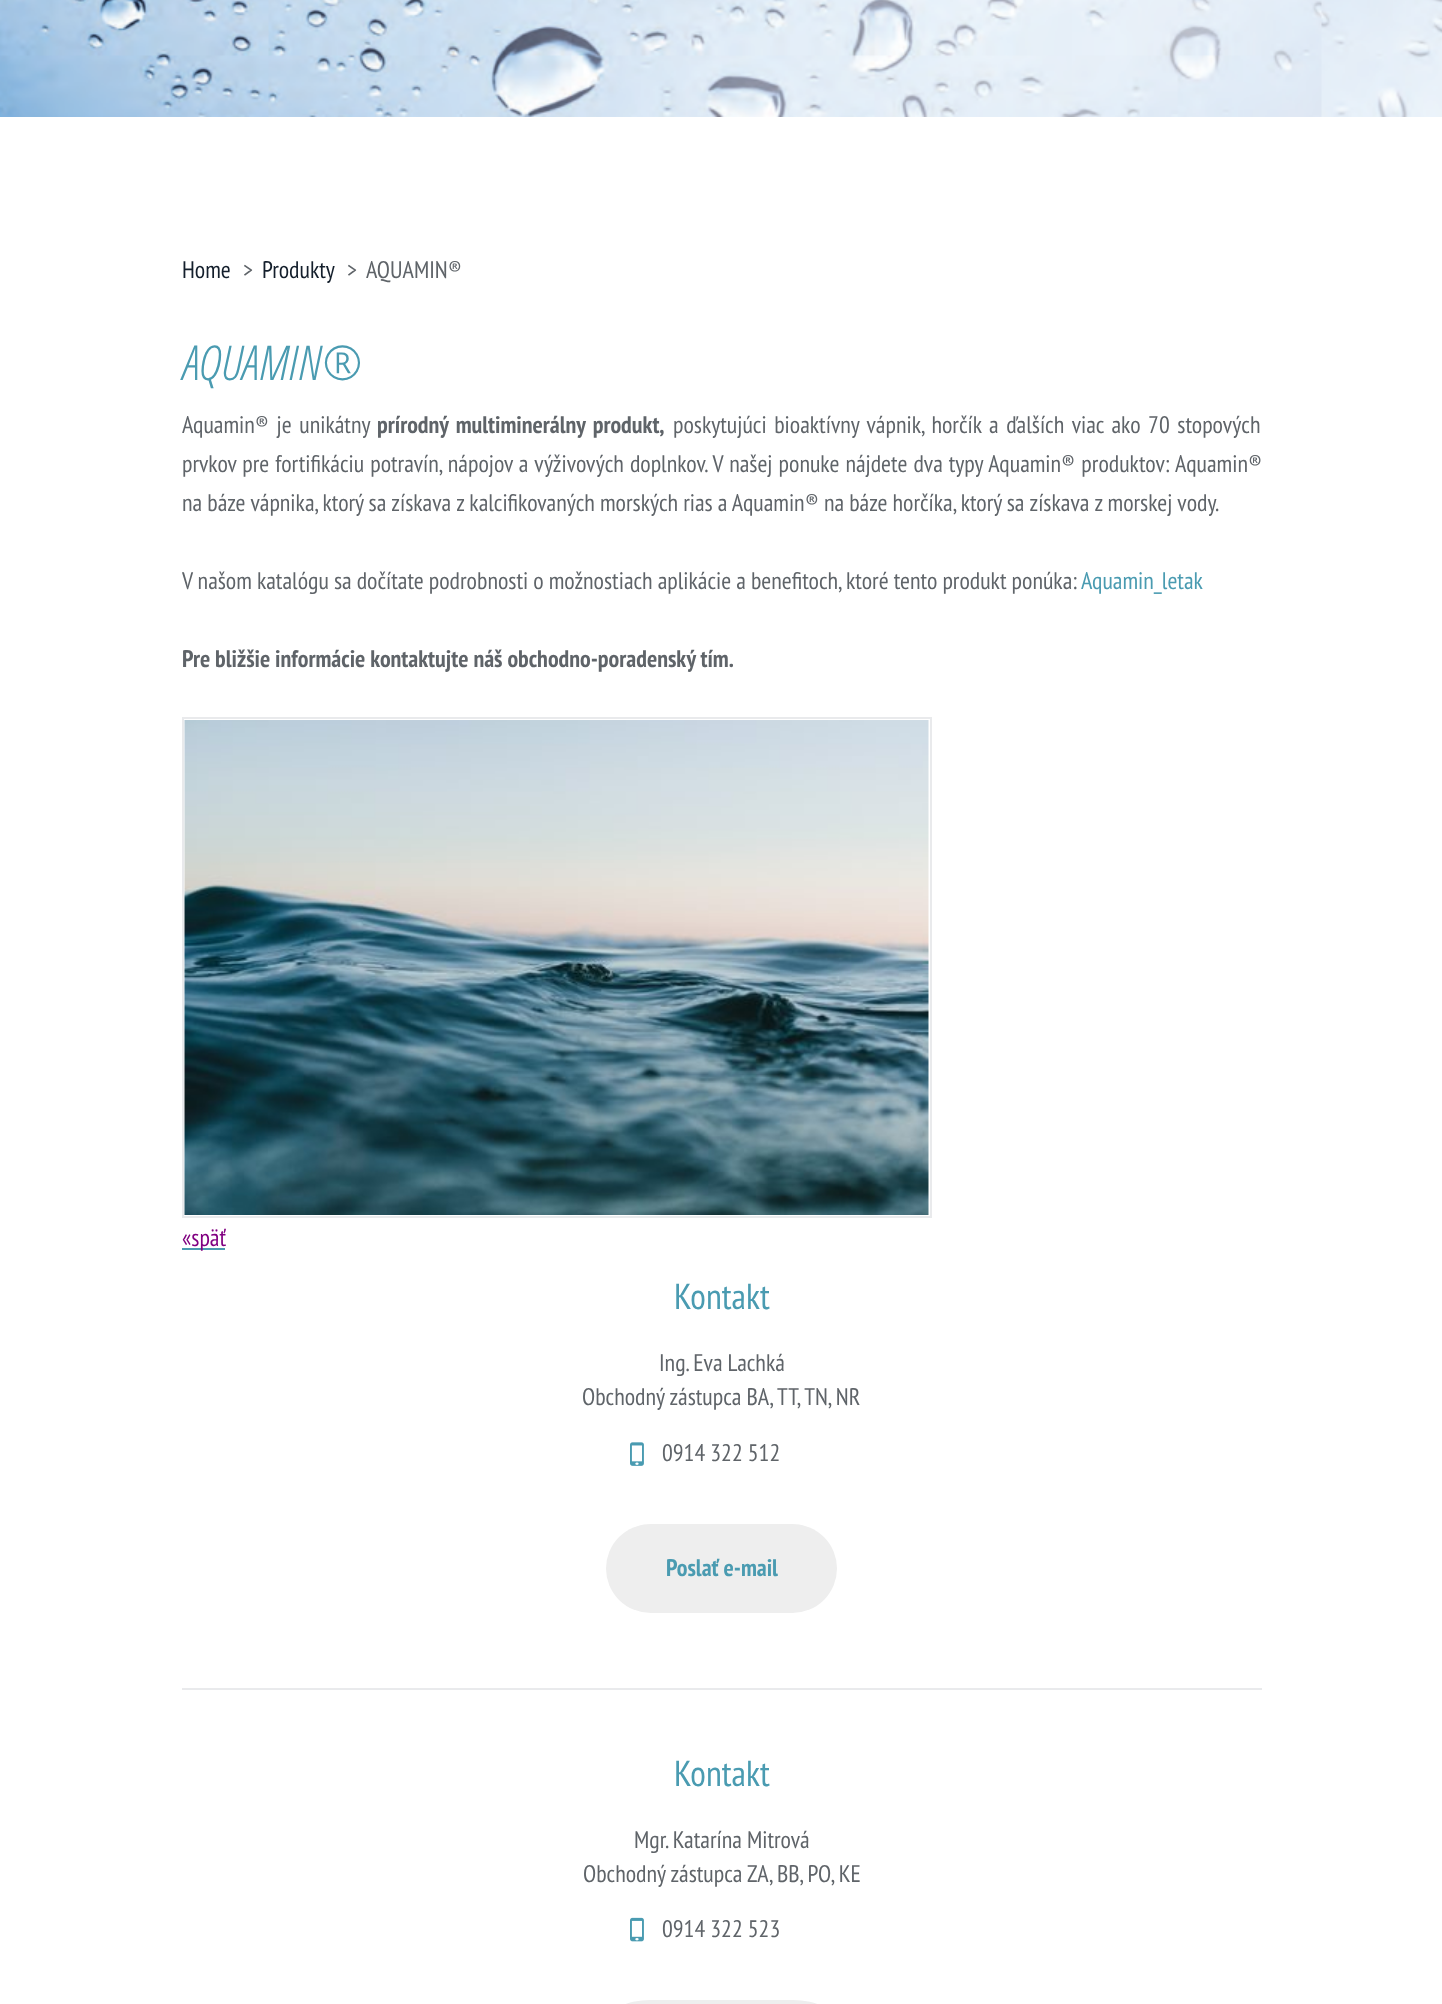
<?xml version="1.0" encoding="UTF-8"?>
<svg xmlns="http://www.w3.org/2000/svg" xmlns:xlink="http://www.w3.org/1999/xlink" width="1442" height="2004">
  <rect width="100%" height="100%" fill="#ffffff" />
  <image x="0" y="0" width="1442" height="117" xlink:href="image1.png" />
  <rect x="183" y="718" width="748" height="499" fill="none" stroke="#e9eaec" stroke-width="2" />
  <image x="184" y="720" width="745" height="495" xlink:href="image2.png" />
  <rect x="182" y="1248" width="43" height="2" fill="#4a9bb1" />
  <rect x="182" y="1688" width="1080" height="2" fill="#e9eaec" />
  <image x="630" y="1442" width="14" height="24" xlink:href="image3.png" />
  <rect x="606" y="1524" width="231" height="89" rx="44.5" fill="#eeeeee" />
  <image x="630" y="1917" width="14" height="25" xlink:href="image4.png" />
  <rect x="606" y="2000" width="231" height="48" rx="44" fill="#eeeeee" />
  <text x="182" y="278" style="font-family: PT Sans Narrow; font-size: 24px; fill: #141f2c">Home</text>
  <text x="243" y="278" style="font-family: PT Sans Narrow; font-size: 24px; fill: #5f6469">&gt;</text>
  <text x="262" y="278" style="font-family: PT Sans Narrow; font-size: 24px; fill: #141f2c">Produkty</text>
  <text x="347" y="278" style="font-family: PT Sans Narrow; font-size: 24px; fill: #5f6469">&gt;</text>
  <text x="366" y="278" style="font-family: PT Sans Narrow; font-size: 24px; fill: #5f6469">AQUAMIN®</text>
  <text x="182" y="380" style="font-family: Open Sans Condensed; font-size: 48px; font-weight: 300; font-style: italic; fill: #4a9bb1">AQUAMIN®</text>
  <text x="182" y="433" word-spacing="2.5" style="font-family: PT Sans Narrow; font-size: 24px; fill: #5f6469">Aquamin® je unikátny</text>
  <text x="377" y="433" word-spacing="2.5" style="font-family: PT Sans Narrow; font-size: 24px; font-weight: bold; fill: #5f6469">prírodný multiminerálny produkt,</text>
  <text x="673" y="433" word-spacing="2.5" style="font-family: PT Sans Narrow; font-size: 24px; fill: #5f6469">poskytujúci bioaktívny vápnik, horčík a ďalších viac ako 70 stopových</text>
  <text x="182" y="472" word-spacing="1" style="font-family: PT Sans Narrow; font-size: 24px; fill: #5f6469">prvkov pre fortifikáciu potravín, nápojov a výživových doplnkov. V našej ponuke nájdete dva typy Aquamin® produktov: Aquamin®</text>
  <text x="182" y="511" style="font-family: PT Sans Narrow; font-size: 24px; fill: #5f6469">na báze vápnika, ktorý sa získava z kalcifikovaných morských rias a Aquamin® na báze horčíka, ktorý sa získava z morskej vody.</text>
  <text x="182" y="589" style="font-family: PT Sans Narrow; font-size: 24px; fill: #5f6469">V našom katalógu sa dočítate podrobnosti o možnostiach aplikácie a benefitoch, ktoré tento produkt ponúka:</text>
  <text x="1081" y="589" style="font-family: PT Sans Narrow; font-size: 24px; fill: #4a9bb1">Aquamin_letak</text>
  <text x="182" y="667" style="font-family: PT Sans Narrow; font-size: 24px; font-weight: bold; fill: #5f6469">Pre bližšie informácie kontaktujte náš obchodno-poradenský tím.</text>
  <text x="182" y="1246" style="font-family: PT Sans Narrow; font-size: 24px; fill: #810081">«späť</text>
  <text x="674" y="1309" style="font-family: PT Sans Narrow; font-size: 36px; fill: #4a9bb1">Kontakt</text>
  <text x="659" y="1371" style="font-family: PT Sans Narrow; font-size: 24px; fill: #5f6469">Ing. Eva Lachká</text>
  <text x="582" y="1405" style="font-family: PT Sans Narrow; font-size: 24px; fill: #5f6469">Obchodný zástupca BA, TT, TN, NR</text>
  <text x="662" y="1461" style="font-family: PT Sans Narrow; font-size: 24px; fill: #5f6469">0914 322 512</text>
  <text x="666" y="1576" style="font-family: PT Sans Narrow; font-size: 24px; font-weight: bold; fill: #4a9bb1">Poslať e-mail</text>
  <text x="674" y="1786" style="font-family: PT Sans Narrow; font-size: 36px; fill: #4a9bb1">Kontakt</text>
  <text x="634" y="1848" style="font-family: PT Sans Narrow; font-size: 24px; fill: #5f6469">Mgr. Katarína Mitrová</text>
  <text x="583" y="1882" style="font-family: PT Sans Narrow; font-size: 24px; fill: #5f6469">Obchodný zástupca ZA, BB, PO, KE</text>
  <text x="662" y="1937" style="font-family: PT Sans Narrow; font-size: 24px; fill: #5f6469">0914 322 523</text>
</svg>
